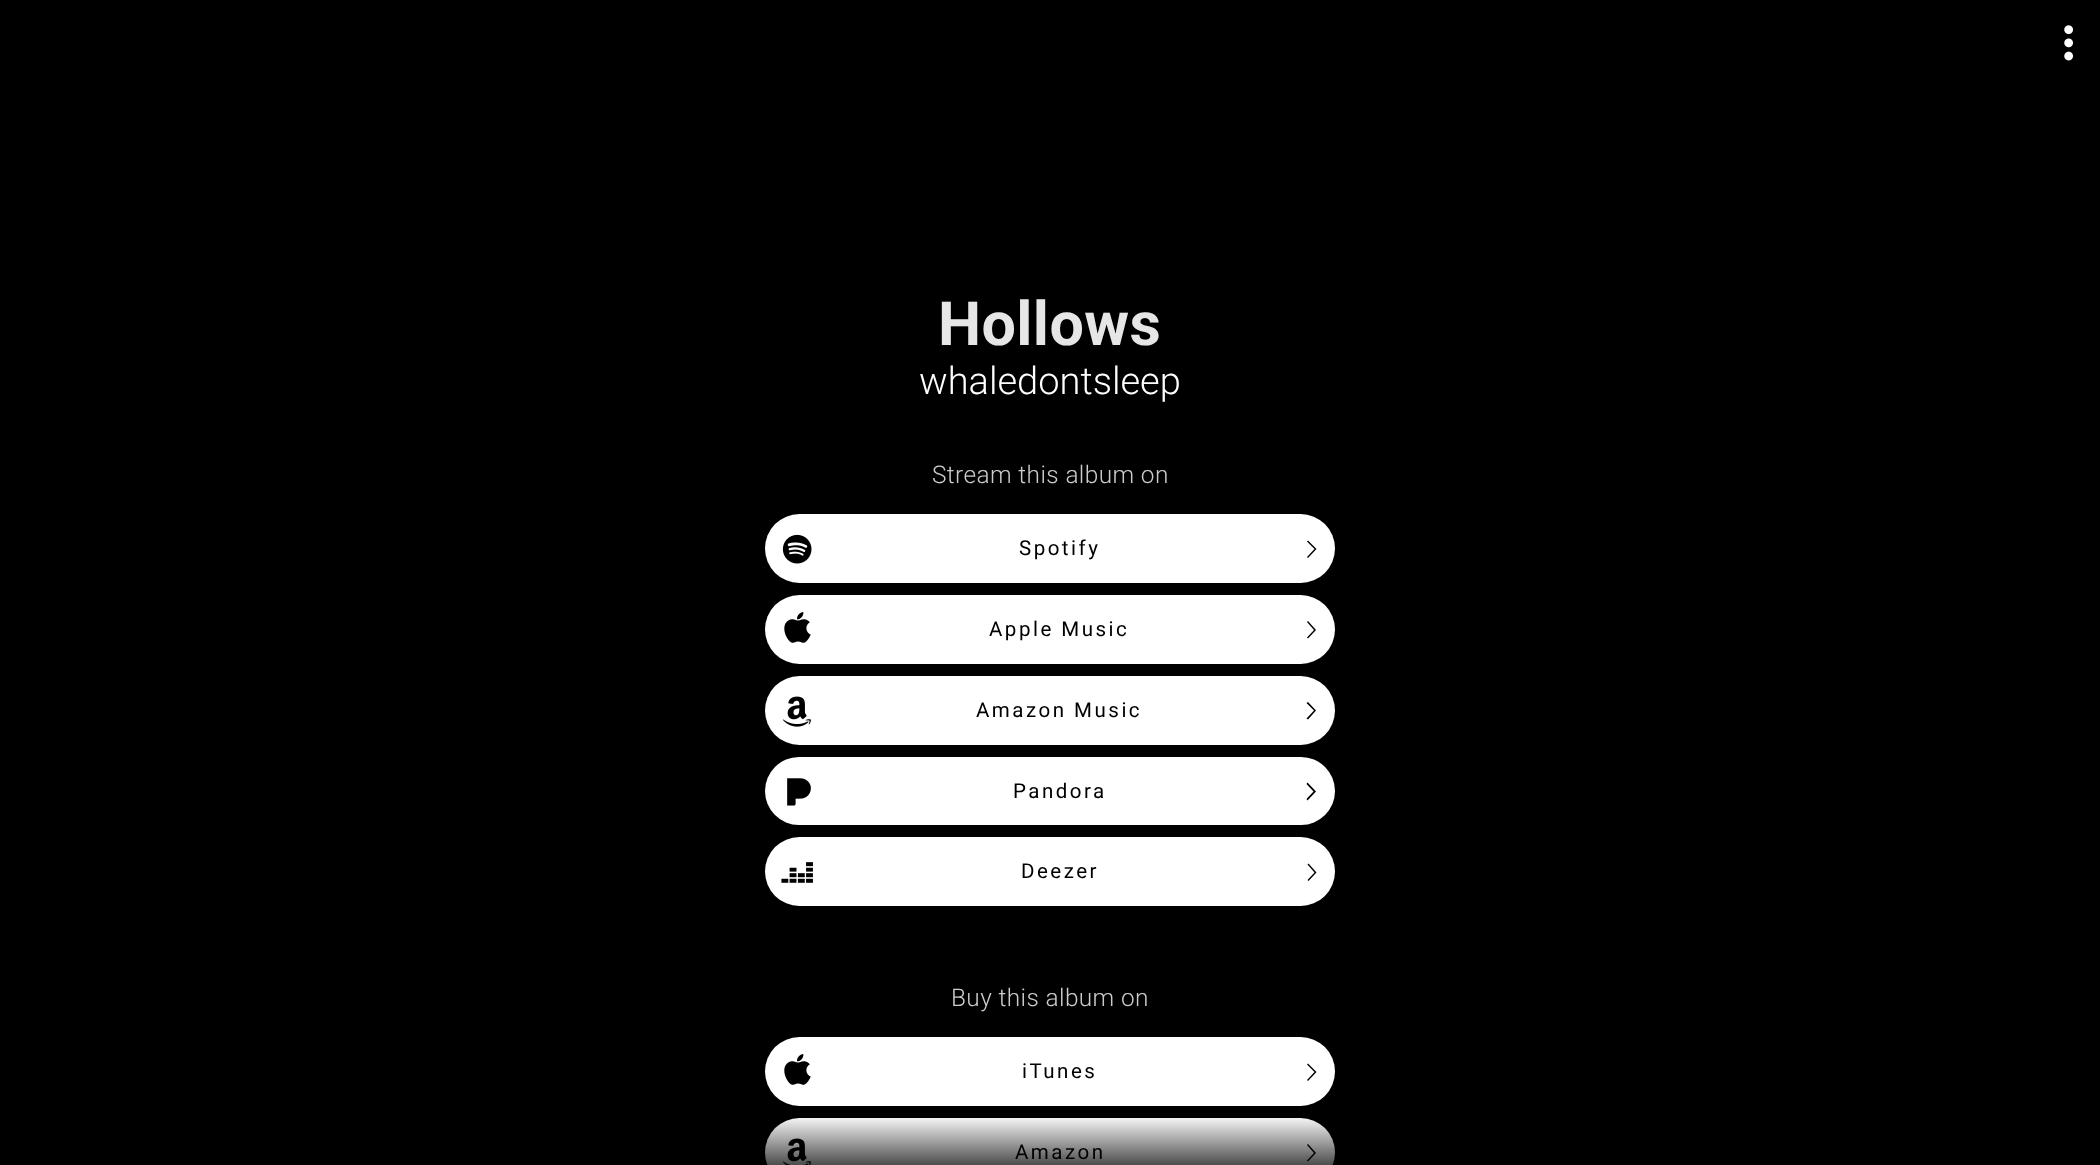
<?xml version="1.0" encoding="UTF-8"?>
<svg xmlns="http://www.w3.org/2000/svg" xmlns:xlink="http://www.w3.org/1999/xlink" width="2100" height="1165">
  <defs>
    <linearGradient id="g1" gradientUnits="userSpaceOnUse" x1="1050" y1="1165" x2="1050" y2="1115"><stop offset="0" stop-color="#000000" stop-opacity="0.7" /><stop offset="1" stop-color="#000000" stop-opacity="0" /></linearGradient>
  </defs>
  <rect width="100%" height="100%" fill="#000000" />
  <image x="2064" y="25" width="9" height="36" xlink:href="image1.png" />
  <rect x="765" y="514" width="570" height="69" rx="34.5" fill="#ffffff" />
  <image x="782" y="534" width="30" height="30" xlink:href="image2.png" />
  <path d="M 1307 557 l 7.5 -8 l -7.5 -7.5 l 1 -1 l 8.5 8.5 l -8.5 9 z" fill="#000000" />
  <rect x="765" y="595" width="570" height="69" rx="34.5" fill="#ffffff" />
  <image x="784" y="612" width="27" height="31" xlink:href="image3.png" />
  <path d="M 1307 637.5 l 7 -7.5 l -7 -8 l 1 -1 l 8 9 l -8 8.5 z" fill="#000000" />
  <rect x="765" y="676" width="570" height="69" rx="34.5" fill="#ffffff" />
  <image x="782" y="696" width="29" height="31" xlink:href="image4.png" />
  <path d="M 1306.5 718.5 l 7.5 -8 l -7.5 -7.5 l 1.5 -1 l 8 8.5 l -8 9 z" fill="#000000" />
  <rect x="765" y="757" width="570" height="68" rx="34" fill="#ffffff" />
  <image x="787" y="778" width="24" height="28" xlink:href="image5.png" />
  <path d="M 1306.5 799 l 7 -7.5 l -7 -7.5 l 1 -1.5 l 8.5 9 l -8.5 9 z" fill="#000000" />
  <rect x="765" y="837" width="570" height="69" rx="34.5" fill="#ffffff" />
  <image x="781" y="862" width="32" height="21" xlink:href="image6.png" />
  <path d="M 1307.5 880 l 7 -7.5 l -7 -8 l 1 -1 l 8 9 l -8 8.5 z" fill="#000000" />
  <rect x="765" y="1037" width="570" height="69" rx="34.5" fill="#ffffff" />
  <image x="784" y="1054" width="27" height="31" xlink:href="image3.png" />
  <path d="M 1307 1080 l 7.5 -8 l -7.5 -7.5 l 1 -1 l 8.5 8.5 l -8.5 9 z" fill="#000000" />
  <rect x="765" y="1118" width="570" height="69" rx="34.5" fill="#ffffff" />
  <image x="782" y="1138" width="29" height="27" xlink:href="image7.png" />
  <path d="M 1307 1160.5 l 7 -7.5 l -7 -8 l 1 -1 l 8 9 l -8 8.5 z" fill="#000000" />
  <text x="938" y="345" style="font-family: Roboto; font-size: 61px; font-weight: bold; letter-spacing: 0.4px; fill: #e6e6e6">Hollows</text>
  <text x="919" y="394" style="font-family: Roboto; font-size: 38px; font-weight: 300; fill: #ffffff">whaledontsleep</text>
  <text x="932" y="483" style="font-family: Roboto; font-size: 24.4px; font-weight: 300; letter-spacing: 0.4px; fill: #cccccc">Stream this album on</text>
  <text x="1019" y="555" style="font-family: Roboto; font-size: 20.5px; letter-spacing: 2.5px; fill: #000000">Spotify</text>
  <text x="989" y="636" style="font-family: Roboto; font-size: 20.5px; letter-spacing: 2.5px; fill: #000000">Apple Music</text>
  <text x="976" y="717" style="font-family: Roboto; font-size: 20.5px; letter-spacing: 2.5px; fill: #000000">Amazon Music</text>
  <text x="1013" y="798" style="font-family: Roboto; font-size: 20.5px; letter-spacing: 2.5px; fill: #000000">Pandora</text>
  <text x="1021" y="878" style="font-family: Roboto; font-size: 20.5px; letter-spacing: 2.5px; fill: #000000">Deezer</text>
  <text x="951" y="1006" style="font-family: Roboto; font-size: 24.4px; font-weight: 300; letter-spacing: 0.4px; fill: #cccccc">Buy this album on</text>
  <text x="1022" y="1078" style="font-family: Roboto; font-size: 20.5px; letter-spacing: 2.5px; fill: #000000">iTunes</text>
  <text x="1015" y="1159" style="font-family: Roboto; font-size: 20.5px; letter-spacing: 2.5px; fill: #000000">Amazon</text>
  <rect x="765" y="1118" width="570" height="47" fill="url(#g1)" />
</svg>
